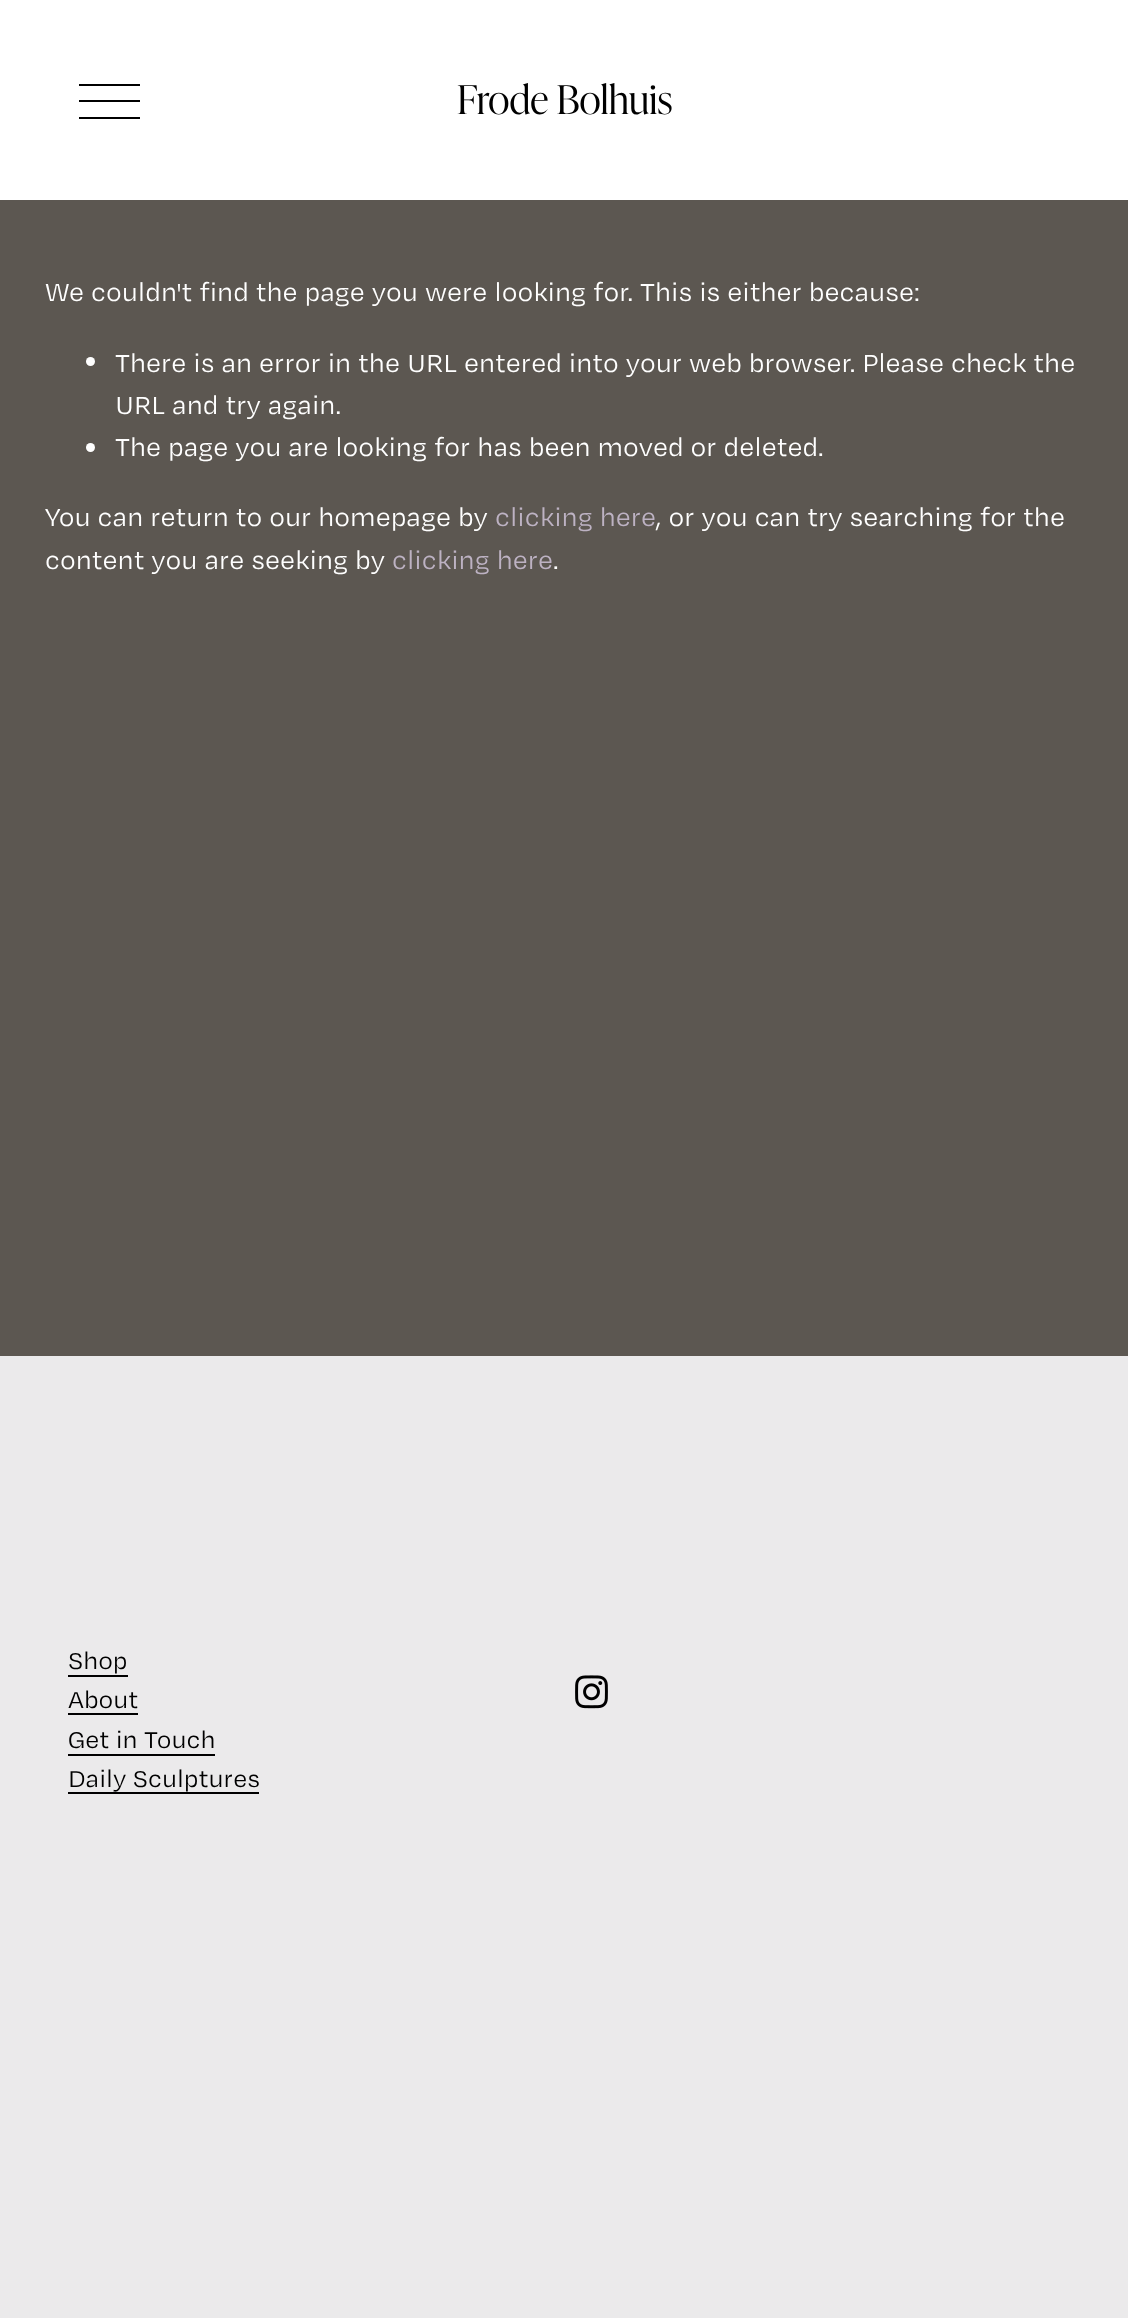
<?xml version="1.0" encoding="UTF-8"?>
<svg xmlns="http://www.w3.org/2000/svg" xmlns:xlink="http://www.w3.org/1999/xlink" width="1128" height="2318">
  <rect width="100%" height="100%" fill="#5c5751" />
  <rect width="1128" height="200" fill="#ffffff" />
  <rect x="79" y="84" width="61" height="2" fill="#000000" />
  <rect x="79" y="100" width="61" height="2" fill="#000000" />
  <rect x="79" y="117" width="61" height="2" fill="#000000" />
  <circle cx="90.5" cy="361.5" r="4.5" fill="#ffffff" />
  <circle cx="90.5" cy="447.5" r="4.5" fill="#ffffff" />
  <rect y="1356" width="1128" height="962" fill="#ebeaeb" />
  <rect x="68" y="1675" width="60" height="2" fill="#000000" />
  <rect x="68" y="1713" width="70" height="2" fill="#000000" />
  <rect x="68" y="1754" width="147" height="2" fill="#000000" />
  <rect x="68" y="1792" width="191" height="2" fill="#000000" />
  <image x="575" y="1675" width="33" height="34" xlink:href="image1.png" />
  <text x="457" y="114" style="font-family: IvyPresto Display; font-size: 39.5px; font-weight: 300; fill: #000000">Frode Bolhuis</text>
  <text x="45" y="301" style="font-family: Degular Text; font-size: 28.15px; fill: #ffffff">We couldn't find the page you were looking for. This is either because:</text>
  <text x="115" y="372" style="font-family: Degular Text; font-size: 28.15px; fill: #ffffff">There is an error in the URL entered into your web browser. Please check the</text>
  <text x="115" y="414" style="font-family: Degular Text; font-size: 28.15px; fill: #ffffff">URL and try again.</text>
  <text x="115" y="456" style="font-family: Degular Text; font-size: 28.15px; fill: #ffffff">The page you are looking for has been moved or deleted.</text>
  <text x="45" y="526" style="font-family: Degular Text; font-size: 28.15px; fill: #ffffff">You can return to our homepage by</text>
  <text x="495" y="526" style="font-family: Degular Text; font-size: 28.15px; fill: #bdb2c3">clicking here</text>
  <text x="656" y="526" style="font-family: Degular Text; font-size: 28.15px; fill: #ffffff">, or you can try searching for the</text>
  <text x="45" y="569" style="font-family: Degular Text; font-size: 28.15px; fill: #ffffff">content you are seeking by</text>
  <text x="392" y="569" style="font-family: Degular Text; font-size: 28.15px; fill: #bdb2c3">clicking here</text>
  <text x="553" y="569" style="font-family: Degular Text; font-size: 28.15px; fill: #ffffff">.</text>
  <text x="68" y="1669" style="font-family: Degular Text; font-size: 26.25px; fill: #000000">Shop</text>
  <text x="68" y="1708" style="font-family: Degular Text; font-size: 26.25px; fill: #000000">About</text>
  <text x="68" y="1748" style="font-family: Degular Text; font-size: 26.25px; fill: #000000">Get in Touch</text>
  <text x="68" y="1787" style="font-family: Degular Text; font-size: 26.25px; fill: #000000">Daily Sculptures</text>
</svg>
